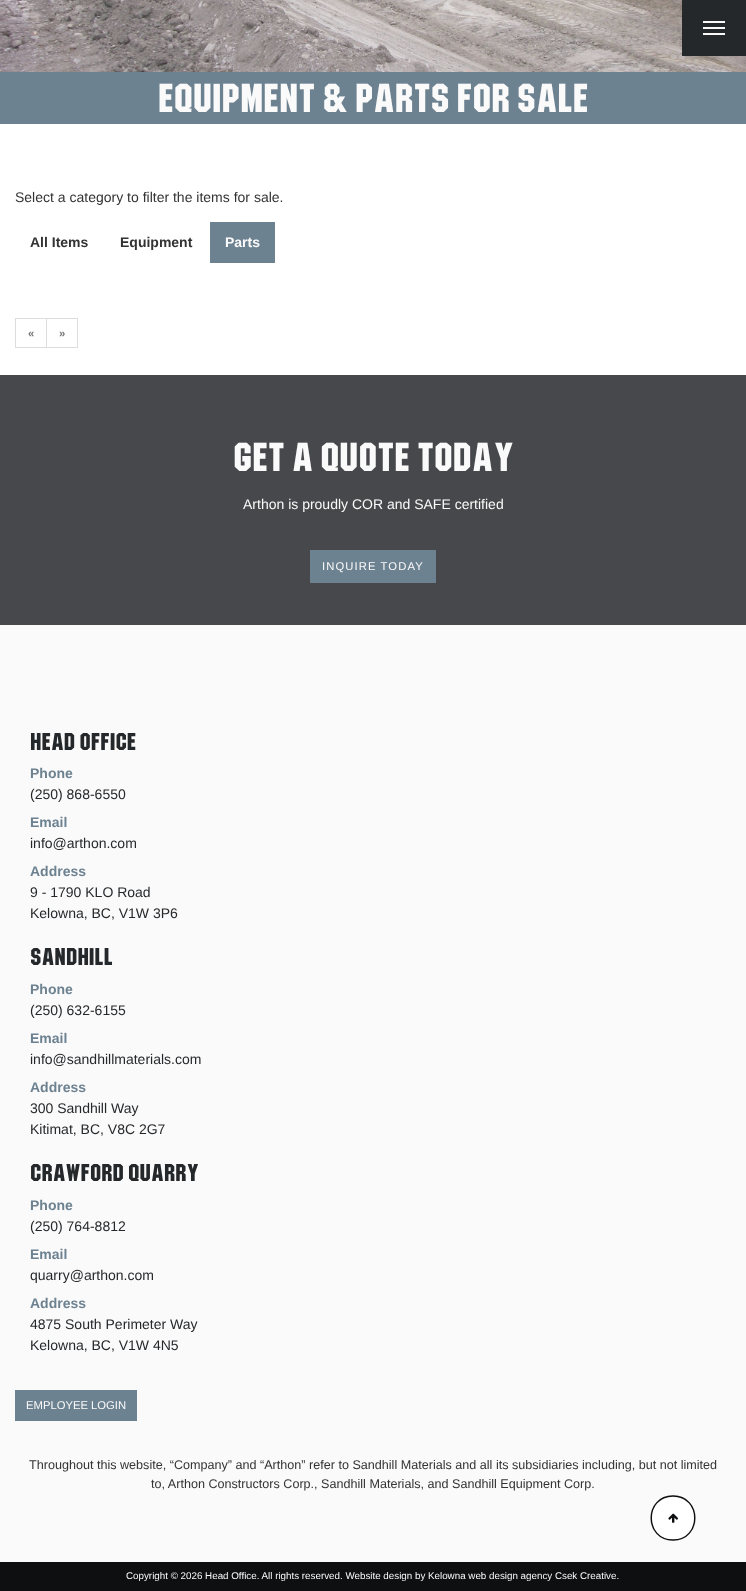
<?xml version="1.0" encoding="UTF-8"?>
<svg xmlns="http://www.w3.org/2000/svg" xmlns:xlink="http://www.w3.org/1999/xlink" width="746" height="1591">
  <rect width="100%" height="100%" fill="#ffffff" />
  <image x="0" y="0" width="746" height="72" xlink:href="image1.png" />
  <rect x="682" width="64" height="56" fill="#25282b" />
  <rect x="703" y="21" width="22" height="2" fill="#fbfafa" />
  <rect x="703" y="27" width="22" height="2" fill="#fbfafa" />
  <rect x="703" y="33" width="22" height="2" fill="#fbfafa" />
  <rect y="72" width="746" height="52" fill="#6d8291" />
  <rect x="210" y="222" width="65" height="41" fill="#6d8291" />
  <rect x="15.5" y="318.5" width="31" height="29" fill="none" stroke="#dddddd" />
  <rect x="46.5" y="318.5" width="31" height="29" fill="none" stroke="#dddddd" />
  <rect y="375" width="746" height="250" fill="#46484b" />
  <rect x="310" y="550" width="126" height="33" fill="#6d8291" />
  <rect y="625" width="746" height="937" fill="#fbfafa" />
  <rect x="15" y="1390" width="122" height="31" fill="#6d8291" />
  <rect y="1562" width="746" height="29" fill="#0d0f10" />
  <circle cx="673" cy="1518" r="22" fill="none" stroke="#e5e4e4" stroke-width="2" />
  <path d="M 673 1496 c 29 0 29 44 0 44 c -29 0 -29 -44 0 -44" fill="#ffffff" stroke="#0d0f10" stroke-width="1.4" />
  <image x="668" y="1513" width="10" height="10" xlink:href="image2.png" />
  <text x="158" y="112" style="font-family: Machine; font-size: 35px; font-weight: 100; fill: #fbfafa">Equipment &amp; Parts for Sale</text>
  <text x="15" y="202" style="font-family: Liberation Sans; font-size: 14px; fill: #333333">Select a category to filter the items for sale.</text>
  <text x="30" y="247" style="font-family: Liberation Sans; font-size: 14px; font-weight: bold; fill: #333333">All Items</text>
  <text x="120" y="247" style="font-family: Liberation Sans; font-size: 14px; font-weight: bold; fill: #333333">Equipment</text>
  <text x="225" y="247" style="font-family: Liberation Sans; font-size: 14px; font-weight: bold; fill: #fbfafa">Parts</text>
  <text x="28" y="337" style="font-family: Liberation Sans; font-size: 11.25px; font-weight: bold; fill: #777777">«</text>
  <text x="59" y="337" style="font-family: Liberation Sans; font-size: 11.25px; font-weight: bold; fill: #777777">»</text>
  <text x="233" y="471" style="font-family: Machine; font-size: 35px; font-weight: 100; fill: #fbfafa">Get A Quote Today</text>
  <text x="243" y="509" style="font-family: Liberation Sans; font-size: 14px; fill: #fbfafa">Arthon is proudly COR and SAFE certified</text>
  <text x="322" y="570" style="font-family: Liberation Sans; font-size: 11.25px; letter-spacing: 1.1px; fill: #fbfafa">INQUIRE TODAY</text>
  <text x="30" y="750" style="font-family: Machine; font-size: 21px; font-weight: 100; fill: #25282b">Head Office</text>
  <text x="30" y="778" style="font-family: Liberation Sans; font-size: 14px; font-weight: bold; fill: #6d8291">Phone</text>
  <text x="30" y="799" style="font-family: Liberation Sans; font-size: 14px; fill: #25282b">(250) 868-6550</text>
  <text x="30" y="827" style="font-family: Liberation Sans; font-size: 14px; font-weight: bold; fill: #6d8291">Email</text>
  <text x="30" y="848" style="font-family: Liberation Sans; font-size: 14px; fill: #25282b">info@arthon.com</text>
  <text x="30" y="876" style="font-family: Liberation Sans; font-size: 14px; font-weight: bold; fill: #6d8291">Address</text>
  <text x="30" y="897" style="font-family: Liberation Sans; font-size: 14px; fill: #25282b">9 - 1790 KLO Road</text>
  <text x="30" y="918" style="font-family: Liberation Sans; font-size: 14px; fill: #25282b">Kelowna, BC, V1W 3P6</text>
  <text x="30" y="965" style="font-family: Machine; font-size: 21px; font-weight: 100; fill: #25282b">Sandhill</text>
  <text x="30" y="994" style="font-family: Liberation Sans; font-size: 14px; font-weight: bold; fill: #6d8291">Phone</text>
  <text x="30" y="1015" style="font-family: Liberation Sans; font-size: 14px; fill: #25282b">(250) 632-6155</text>
  <text x="30" y="1043" style="font-family: Liberation Sans; font-size: 14px; font-weight: bold; fill: #6d8291">Email</text>
  <text x="30" y="1064" style="font-family: Liberation Sans; font-size: 14px; fill: #25282b">info@sandhillmaterials.com</text>
  <text x="30" y="1092" style="font-family: Liberation Sans; font-size: 14px; font-weight: bold; fill: #6d8291">Address</text>
  <text x="30" y="1113" style="font-family: Liberation Sans; font-size: 14px; fill: #25282b">300 Sandhill Way</text>
  <text x="30" y="1134" style="font-family: Liberation Sans; font-size: 14px; fill: #25282b">Kitimat, BC, V8C 2G7</text>
  <text x="30" y="1181" style="font-family: Machine; font-size: 21px; font-weight: 100; fill: #25282b">Crawford Quarry</text>
  <text x="30" y="1210" style="font-family: Liberation Sans; font-size: 14px; font-weight: bold; fill: #6d8291">Phone</text>
  <text x="30" y="1231" style="font-family: Liberation Sans; font-size: 14px; fill: #25282b">(250) 764-8812</text>
  <text x="30" y="1259" style="font-family: Liberation Sans; font-size: 14px; font-weight: bold; fill: #6d8291">Email</text>
  <text x="30" y="1280" style="font-family: Liberation Sans; font-size: 14px; fill: #25282b">quarry@arthon.com</text>
  <text x="30" y="1308" style="font-family: Liberation Sans; font-size: 14px; font-weight: bold; fill: #6d8291">Address</text>
  <text x="30" y="1329" style="font-family: Liberation Sans; font-size: 14px; fill: #25282b">4875 South Perimeter Way</text>
  <text x="30" y="1350" style="font-family: Liberation Sans; font-size: 14px; fill: #25282b">Kelowna, BC, V1W 4N5</text>
  <text x="26" y="1409" style="font-family: Liberation Sans; font-size: 11.25px; fill: #fbfafa">EMPLOYEE LOGIN</text>
  <text x="29" y="1469" style="font-family: Liberation Sans; font-size: 12.6px; fill: #333333">Throughout this website, “Company” and “Arthon” refer to Sandhill Materials and all its subsidiaries including, but not limited</text>
  <text x="151" y="1488" style="font-family: Liberation Sans; font-size: 12.6px; fill: #333333">to, Arthon Constructors Corp., Sandhill Materials, and Sandhill Equipment Corp.</text>
  <text x="126" y="1579" style="font-family: Liberation Sans; font-size: 9.8px; fill: #fbfafa">Copyright © 2026 Head Office. All rights reserved. Website design by Kelowna web design agency Csek Creative.</text>
</svg>
